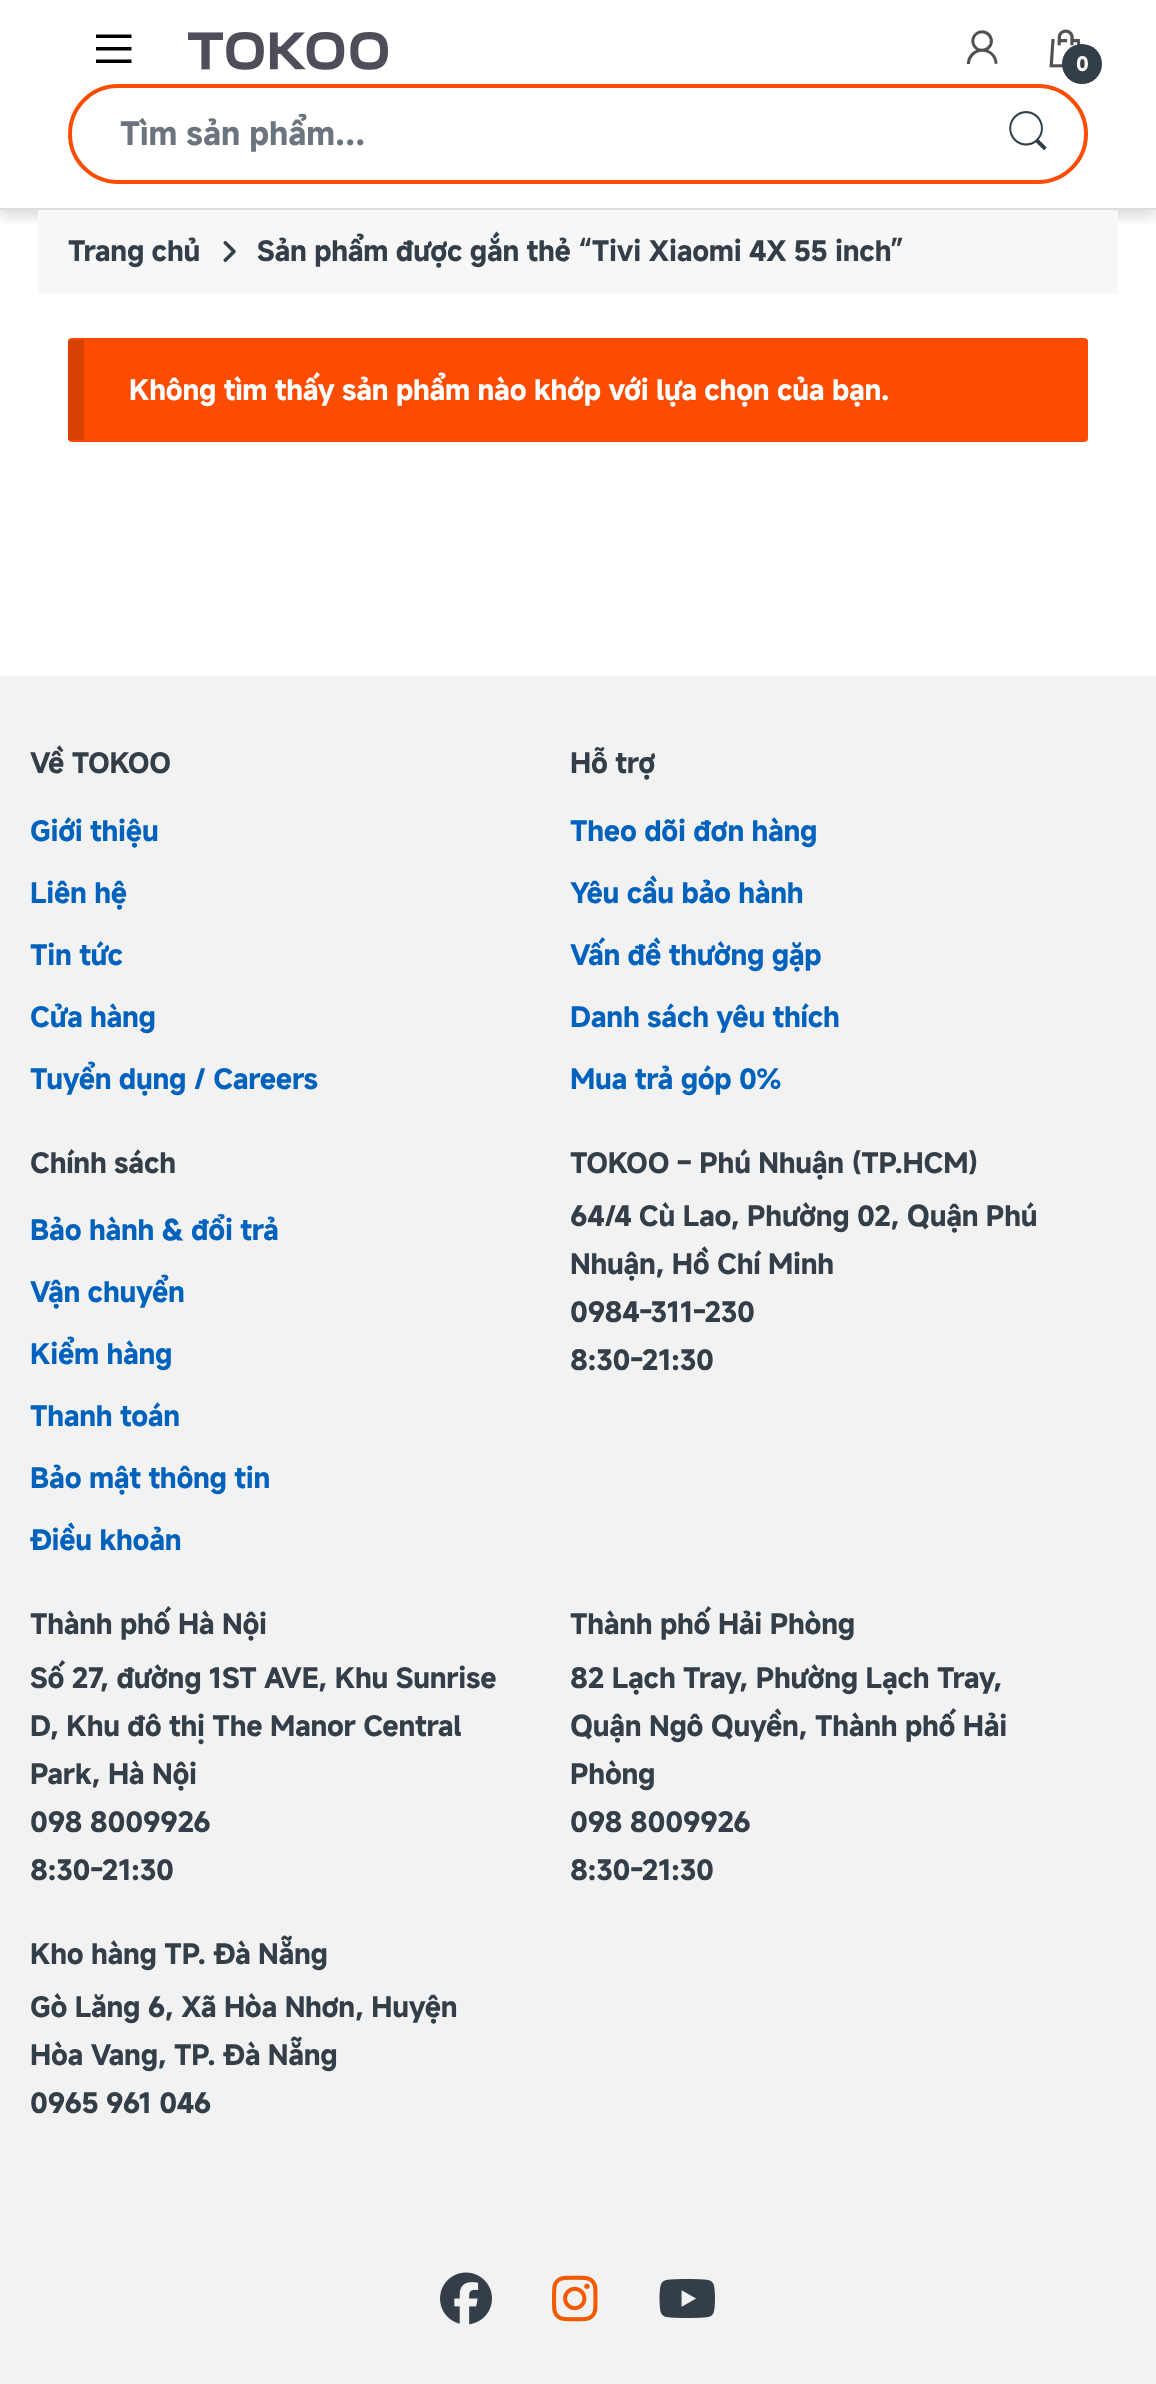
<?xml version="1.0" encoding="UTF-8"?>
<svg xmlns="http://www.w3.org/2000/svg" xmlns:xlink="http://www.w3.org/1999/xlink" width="1156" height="2384">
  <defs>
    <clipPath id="clip1"><rect x="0" y="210" width="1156" height="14" /></clipPath>
  </defs>
  <rect width="100%" height="100%" fill="#ffffff" />
  <g clip-path="url(#clip1)">
    <rect y="8" width="1156" height="210" fill="#000000" fill-opacity="0.12" filter="blur(6px)" />
  </g>
  <rect y="208" width="1156" height="2" fill="#dddddd" />
  <path d="M 96 63 v -3.5 h 35.5 v 3.5 z m 0 -16 h 35.5 v 3.5 h -35.5 z m 0 -12.5 h 35.5 v 3.5 h -35.5 z" fill="#000000" />
  <image x="188" y="32" width="200" height="38" xlink:href="image1.png" />
  <image x="966" y="30" width="32" height="35" xlink:href="image2.png" />
  <image x="1049" y="29" width="32" height="39" xlink:href="image3.png" />
  <circle cx="1082" cy="64" r="20" fill="#333e48" />
  <rect x="70" y="86" width="1016" height="96" rx="48" fill="none" stroke="#fc4c02" stroke-width="4" />
  <image x="1009" y="111" width="38" height="40" xlink:href="image4.png" />
  <rect x="38" y="210" width="1080" height="84" fill="#f7f7f7" />
  <image x="223" y="241" width="13" height="21" xlink:href="image5.png" />
  <rect x="68" y="338" width="1020" height="104" rx="4" fill="#fc4c02" />
  <rect x="68" y="340" width="16" height="100" fill="#000000" fill-opacity="0.15" />
  <rect y="676" width="1156" height="1708" fill="#f2f2f2" />
  <image x="440" y="2272" width="52" height="53" xlink:href="image6.png" />
  <image x="552" y="2275" width="46" height="47" xlink:href="image7.png" />
  <image x="659" y="2279" width="56" height="39" xlink:href="image8.png" />
  <text x="1076" y="71" style="font-family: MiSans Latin; font-size: 20px; font-weight: bold; letter-spacing: -0.28px; fill: #ffffff">0</text>
  <text x="120" y="145" style="font-family: MiSans Latin; font-size: 32px; font-weight: bold; fill: #6c757d">Tìm sản phẩm…</text>
  <text x="68" y="261" style="font-family: MiSans Latin; font-size: 28px; font-weight: bold; letter-spacing: -0.28px; fill: #333e48">Trang chủ</text>
  <text x="257" y="261" style="font-family: MiSans Latin; font-size: 28px; font-weight: bold; letter-spacing: -0.28px; fill: #333e48">Sản phẩm được gắn thẻ “Tivi Xiaomi 4X 55 inch”</text>
  <text x="129" y="400" style="font-family: MiSans Latin; font-size: 28px; font-weight: bold; letter-spacing: -0.28px; fill: #ffffff">Không tìm thấy sản phẩm nào khớp với lựa chọn của bạn.</text>
  <text x="30" y="773" style="font-family: MiSans Latin; font-size: 28px; font-weight: bold; letter-spacing: -0.28px; fill: #333e48">Về TOKOO</text>
  <text x="30" y="841" style="font-family: MiSans Latin; font-size: 28px; font-weight: bold; letter-spacing: -0.28px; fill: #0062bd">Giới thiệu</text>
  <text x="30" y="903" style="font-family: MiSans Latin; font-size: 28px; font-weight: bold; letter-spacing: -0.28px; fill: #0062bd">Liên hệ</text>
  <text x="30" y="965" style="font-family: MiSans Latin; font-size: 28px; font-weight: bold; letter-spacing: -0.28px; fill: #0062bd">Tin tức</text>
  <text x="30" y="1027" style="font-family: MiSans Latin; font-size: 28px; font-weight: bold; letter-spacing: -0.28px; fill: #0062bd">Cửa hàng</text>
  <text x="30" y="1089" style="font-family: MiSans Latin; font-size: 28px; font-weight: bold; letter-spacing: -0.28px; fill: #0062bd">Tuyển dụng / Careers</text>
  <text x="570" y="773" style="font-family: MiSans Latin; font-size: 28px; font-weight: bold; letter-spacing: -0.28px; fill: #333e48">Hỗ trợ</text>
  <text x="570" y="841" style="font-family: MiSans Latin; font-size: 28px; font-weight: bold; letter-spacing: -0.28px; fill: #0062bd">Theo dõi đơn hàng</text>
  <text x="570" y="903" style="font-family: MiSans Latin; font-size: 28px; font-weight: bold; letter-spacing: -0.28px; fill: #0062bd">Yêu cầu bảo hành</text>
  <text x="570" y="965" style="font-family: MiSans Latin; font-size: 28px; font-weight: bold; letter-spacing: -0.28px; fill: #0062bd">Vấn đề thường gặp</text>
  <text x="570" y="1027" style="font-family: MiSans Latin; font-size: 28px; font-weight: bold; letter-spacing: -0.28px; fill: #0062bd">Danh sách yêu thích</text>
  <text x="570" y="1089" style="font-family: MiSans Latin; font-size: 28px; font-weight: bold; letter-spacing: -0.28px; fill: #0062bd">Mua trả góp 0%</text>
  <text x="30" y="1173" style="font-family: MiSans Latin; font-size: 28px; font-weight: bold; letter-spacing: -0.28px; fill: #333e48">Chính sách</text>
  <text x="30" y="1240" style="font-family: MiSans Latin; font-size: 28px; font-weight: bold; letter-spacing: -0.28px; fill: #0062bd">Bảo hành &amp; đổi trả</text>
  <text x="30" y="1302" style="font-family: MiSans Latin; font-size: 28px; font-weight: bold; letter-spacing: -0.28px; fill: #0062bd">Vận chuyển</text>
  <text x="30" y="1364" style="font-family: MiSans Latin; font-size: 28px; font-weight: bold; letter-spacing: -0.28px; fill: #0062bd">Kiểm hàng</text>
  <text x="30" y="1426" style="font-family: MiSans Latin; font-size: 28px; font-weight: bold; letter-spacing: -0.28px; fill: #0062bd">Thanh toán</text>
  <text x="30" y="1488" style="font-family: MiSans Latin; font-size: 28px; font-weight: bold; letter-spacing: -0.28px; fill: #0062bd">Bảo mật thông tin</text>
  <text x="30" y="1550" style="font-family: MiSans Latin; font-size: 28px; font-weight: bold; letter-spacing: -0.28px; fill: #0062bd">Điều khoản</text>
  <text x="570" y="1173" style="font-family: MiSans Latin; font-size: 28px; font-weight: bold; letter-spacing: -0.28px; fill: #333e48">TOKOO – Phú Nhuận (TP.HCM)</text>
  <text x="570" y="1226" style="font-family: MiSans Latin; font-size: 28px; font-weight: bold; letter-spacing: -0.28px; fill: #333e48">64/4 Cù Lao, Phường 02, Quận Phú</text>
  <text x="570" y="1274" style="font-family: MiSans Latin; font-size: 28px; font-weight: bold; letter-spacing: -0.28px; fill: #333e48">Nhuận, Hồ Chí Minh</text>
  <text x="570" y="1322" style="font-family: MiSans Latin; font-size: 28px; font-weight: bold; letter-spacing: -0.28px; fill: #333e48">0984-311-230</text>
  <text x="570" y="1370" style="font-family: MiSans Latin; font-size: 28px; font-weight: bold; letter-spacing: -0.28px; fill: #333e48">8:30-21:30</text>
  <text x="30" y="1634" style="font-family: MiSans Latin; font-size: 28px; font-weight: bold; letter-spacing: -0.28px; fill: #333e48">Thành phố Hà Nội</text>
  <text x="30" y="1688" style="font-family: MiSans Latin; font-size: 28px; font-weight: bold; letter-spacing: -0.28px; fill: #333e48">Số 27, đường 1ST AVE, Khu Sunrise</text>
  <text x="30" y="1736" style="font-family: MiSans Latin; font-size: 28px; font-weight: bold; letter-spacing: -0.28px; fill: #333e48">D, Khu đô thị The Manor Central</text>
  <text x="30" y="1784" style="font-family: MiSans Latin; font-size: 28px; font-weight: bold; letter-spacing: -0.28px; fill: #333e48">Park, Hà Nội</text>
  <text x="30" y="1832" style="font-family: MiSans Latin; font-size: 28px; font-weight: bold; letter-spacing: -0.28px; fill: #333e48">098 8009926</text>
  <text x="30" y="1880" style="font-family: MiSans Latin; font-size: 28px; font-weight: bold; letter-spacing: -0.28px; fill: #333e48">8:30-21:30</text>
  <text x="570" y="1634" style="font-family: MiSans Latin; font-size: 28px; font-weight: bold; letter-spacing: -0.28px; fill: #333e48">Thành phố Hải Phòng</text>
  <text x="570" y="1688" style="font-family: MiSans Latin; font-size: 28px; font-weight: bold; letter-spacing: -0.28px; fill: #333e48">82 Lạch Tray, Phường Lạch Tray,</text>
  <text x="570" y="1736" style="font-family: MiSans Latin; font-size: 28px; font-weight: bold; letter-spacing: -0.28px; fill: #333e48">Quận Ngô Quyền, Thành phố Hải</text>
  <text x="570" y="1784" style="font-family: MiSans Latin; font-size: 28px; font-weight: bold; letter-spacing: -0.28px; fill: #333e48">Phòng</text>
  <text x="570" y="1832" style="font-family: MiSans Latin; font-size: 28px; font-weight: bold; letter-spacing: -0.28px; fill: #333e48">098 8009926</text>
  <text x="570" y="1880" style="font-family: MiSans Latin; font-size: 28px; font-weight: bold; letter-spacing: -0.28px; fill: #333e48">8:30-21:30</text>
  <text x="30" y="1964" style="font-family: MiSans Latin; font-size: 28px; font-weight: bold; letter-spacing: -0.28px; fill: #333e48">Kho hàng TP. Đà Nẵng</text>
  <text x="30" y="2017" style="font-family: MiSans Latin; font-size: 28px; font-weight: bold; letter-spacing: -0.28px; fill: #333e48">Gò Lăng 6, Xã Hòa Nhơn, Huyện</text>
  <text x="30" y="2065" style="font-family: MiSans Latin; font-size: 28px; font-weight: bold; letter-spacing: -0.28px; fill: #333e48">Hòa Vang, TP. Đà Nẵng</text>
  <text x="30" y="2113" style="font-family: MiSans Latin; font-size: 28px; font-weight: bold; letter-spacing: -0.28px; fill: #333e48">0965 961 046</text>
</svg>
